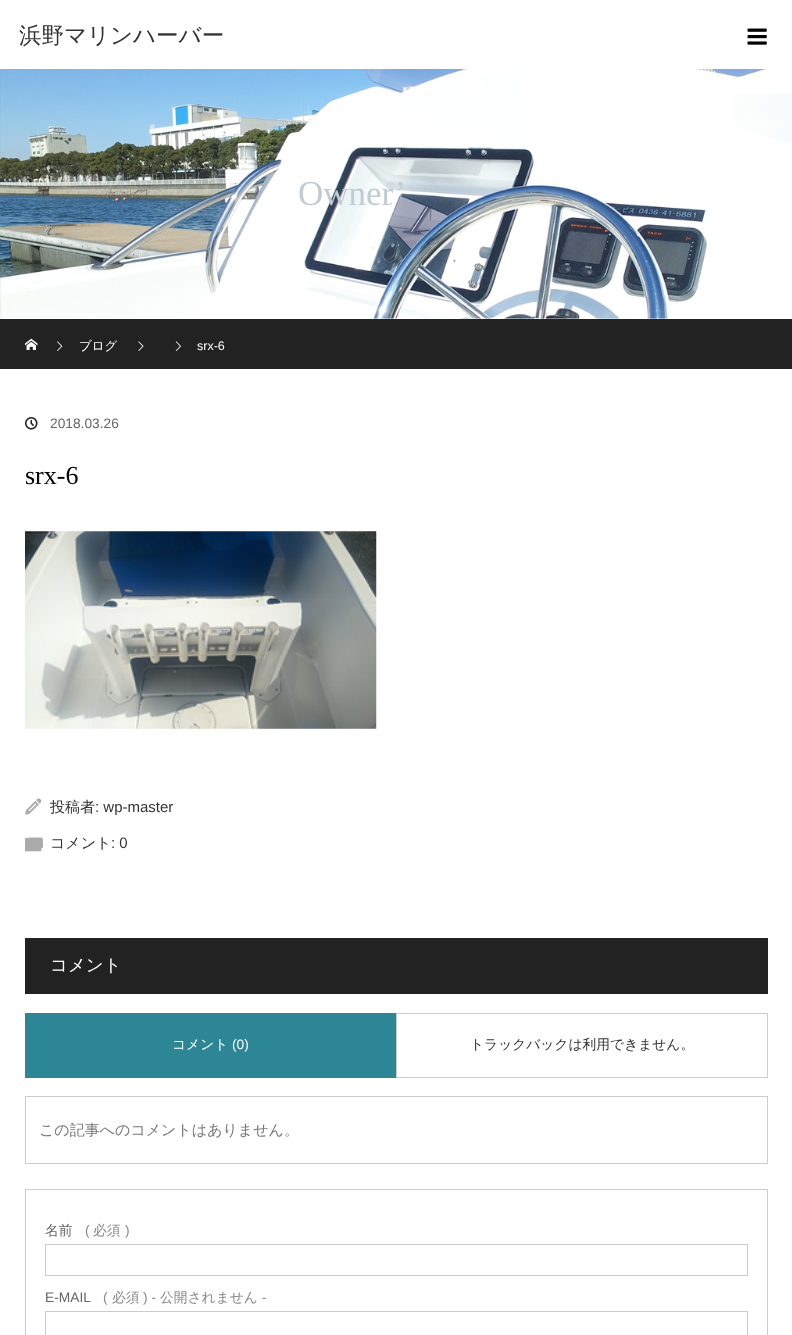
<?xml version="1.0" encoding="UTF-8"?>
<svg xmlns="http://www.w3.org/2000/svg" xmlns:xlink="http://www.w3.org/1999/xlink" width="792" height="1335">
  <rect width="100%" height="100%" fill="#ffffff" />
  <image x="747" y="28" width="20" height="17" xlink:href="image1.png" />
  <image x="0" y="69" width="792" height="250" xlink:href="image2.png" />
  <rect y="319" width="792" height="50" fill="#222222" />
  <image x="25" y="338" width="13" height="12" xlink:href="image3.png" />
  <image x="57" y="341" width="6" height="10" xlink:href="image4.png" />
  <image x="138" y="341" width="6" height="10" xlink:href="image5.png" />
  <image x="175" y="341" width="6" height="10" xlink:href="image6.png" />
  <image x="25" y="417" width="13" height="13" xlink:href="image7.png" />
  <image x="25" y="531" width="352" height="198" xlink:href="image8.png" />
  <image x="25" y="798" width="17" height="17" xlink:href="image9.png" />
  <image x="25" y="838" width="17" height="14" xlink:href="image10.png" />
  <image x="28" y="837" width="15" height="15" xlink:href="image11.png" />
  <rect x="25" y="938" width="743" height="56" fill="#222222" />
  <rect x="25" y="1013" width="371" height="65" fill="#2d8696" />
  <rect x="396.5" y="1013.5" width="371" height="64" fill="none" stroke="#cccccc" />
  <rect x="25.5" y="1096.5" width="742" height="67" fill="none" stroke="#cccccc" />
  <rect x="25.5" y="1189.5" width="742" height="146" fill="none" stroke="#cccccc" />
  <rect x="45.5" y="1244.5" width="702" height="31" fill="none" stroke="#cccccc" />
  <rect x="45.5" y="1311.5" width="702" height="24" fill="none" stroke="#cccccc" />
  <text x="19" y="43" style="font-family: WenQuanYi Zen Hei; font-size: 22.5px; font-weight: 500; fill: #333333">浜野マリンハーバー</text>
  <text x="298" y="205" style="font-family: Liberation Serif; font-size: 35px; fill: #c1cbd4">Owner’</text>
  <text x="79" y="350" style="font-family: WenQuanYi Zen Hei; font-size: 12.5px; font-weight: 500; fill: #ffffff">ブログ</text>
  <text x="197" y="350" style="font-family: Liberation Sans; font-size: 12.5px; fill: #ffffff">srx-6</text>
  <text x="50" y="428" style="font-family: Liberation Sans; font-size: 13.75px; fill: #666666">2018.03.26</text>
  <text x="25" y="484" style="font-family: Liberation Serif; font-size: 26px; fill: #000000">srx-6</text>
  <text x="50" y="812" style="font-family: WenQuanYi Zen Hei; font-size: 15px; font-weight: 500; fill: #333333">投稿者</text>
  <text x="95" y="812" style="font-family: Liberation Sans; font-size: 15px; fill: #333333">: wp-master</text>
  <text x="50" y="848" style="font-family: WenQuanYi Zen Hei; font-size: 15px; font-weight: 500; fill: #333333">コメント</text>
  <text x="111" y="848" style="font-family: Liberation Sans; font-size: 15px; fill: #333333">: 0</text>
  <text x="50" y="971" style="font-family: WenQuanYi Zen Hei; font-size: 17.5px; font-weight: 500; fill: #ffffff">コメント</text>
  <text x="172" y="1049" style="font-family: WenQuanYi Zen Hei; font-size: 13.75px; font-weight: 500; fill: #ffffff">コメント</text>
  <text x="232" y="1049" style="font-family: Liberation Sans; font-size: 13.75px; fill: #ffffff">(0)</text>
  <text x="470" y="1049" style="font-family: WenQuanYi Zen Hei; font-size: 13.75px; font-weight: 500; fill: #333333">トラックバックは利用できません。</text>
  <text x="39" y="1135" style="font-family: WenQuanYi Zen Hei; font-size: 15px; font-weight: 500; fill: #777777">この記事へのコメントはありません。</text>
  <text x="45" y="1235" style="font-family: WenQuanYi Zen Hei; font-size: 13.75px; font-weight: 500; fill: #666666">名前</text>
  <text x="85" y="1235" style="font-family: Liberation Sans; font-size: 13.75px; fill: #888888">(</text>
  <text x="93" y="1235" style="font-family: WenQuanYi Zen Hei; font-size: 13.75px; font-weight: 500; fill: #888888">必須</text>
  <text x="125" y="1235" style="font-family: Liberation Sans; font-size: 13.75px; fill: #888888">)</text>
  <text x="45" y="1302" style="font-family: Liberation Sans; font-size: 13.75px; fill: #666666">E-MAIL</text>
  <text x="103" y="1302" style="font-family: Liberation Sans; font-size: 13.75px; fill: #888888">(</text>
  <text x="112" y="1302" style="font-family: WenQuanYi Zen Hei; font-size: 13.75px; font-weight: 500; fill: #888888">必須</text>
  <text x="143" y="1302" style="font-family: Liberation Sans; font-size: 13.75px; fill: #888888">) -</text>
  <text x="160" y="1302" style="font-family: WenQuanYi Zen Hei; font-size: 13.75px; font-weight: 500; fill: #888888">公開されません</text>
  <text x="262" y="1302" style="font-family: Liberation Sans; font-size: 13.75px; fill: #888888">-</text>
</svg>
